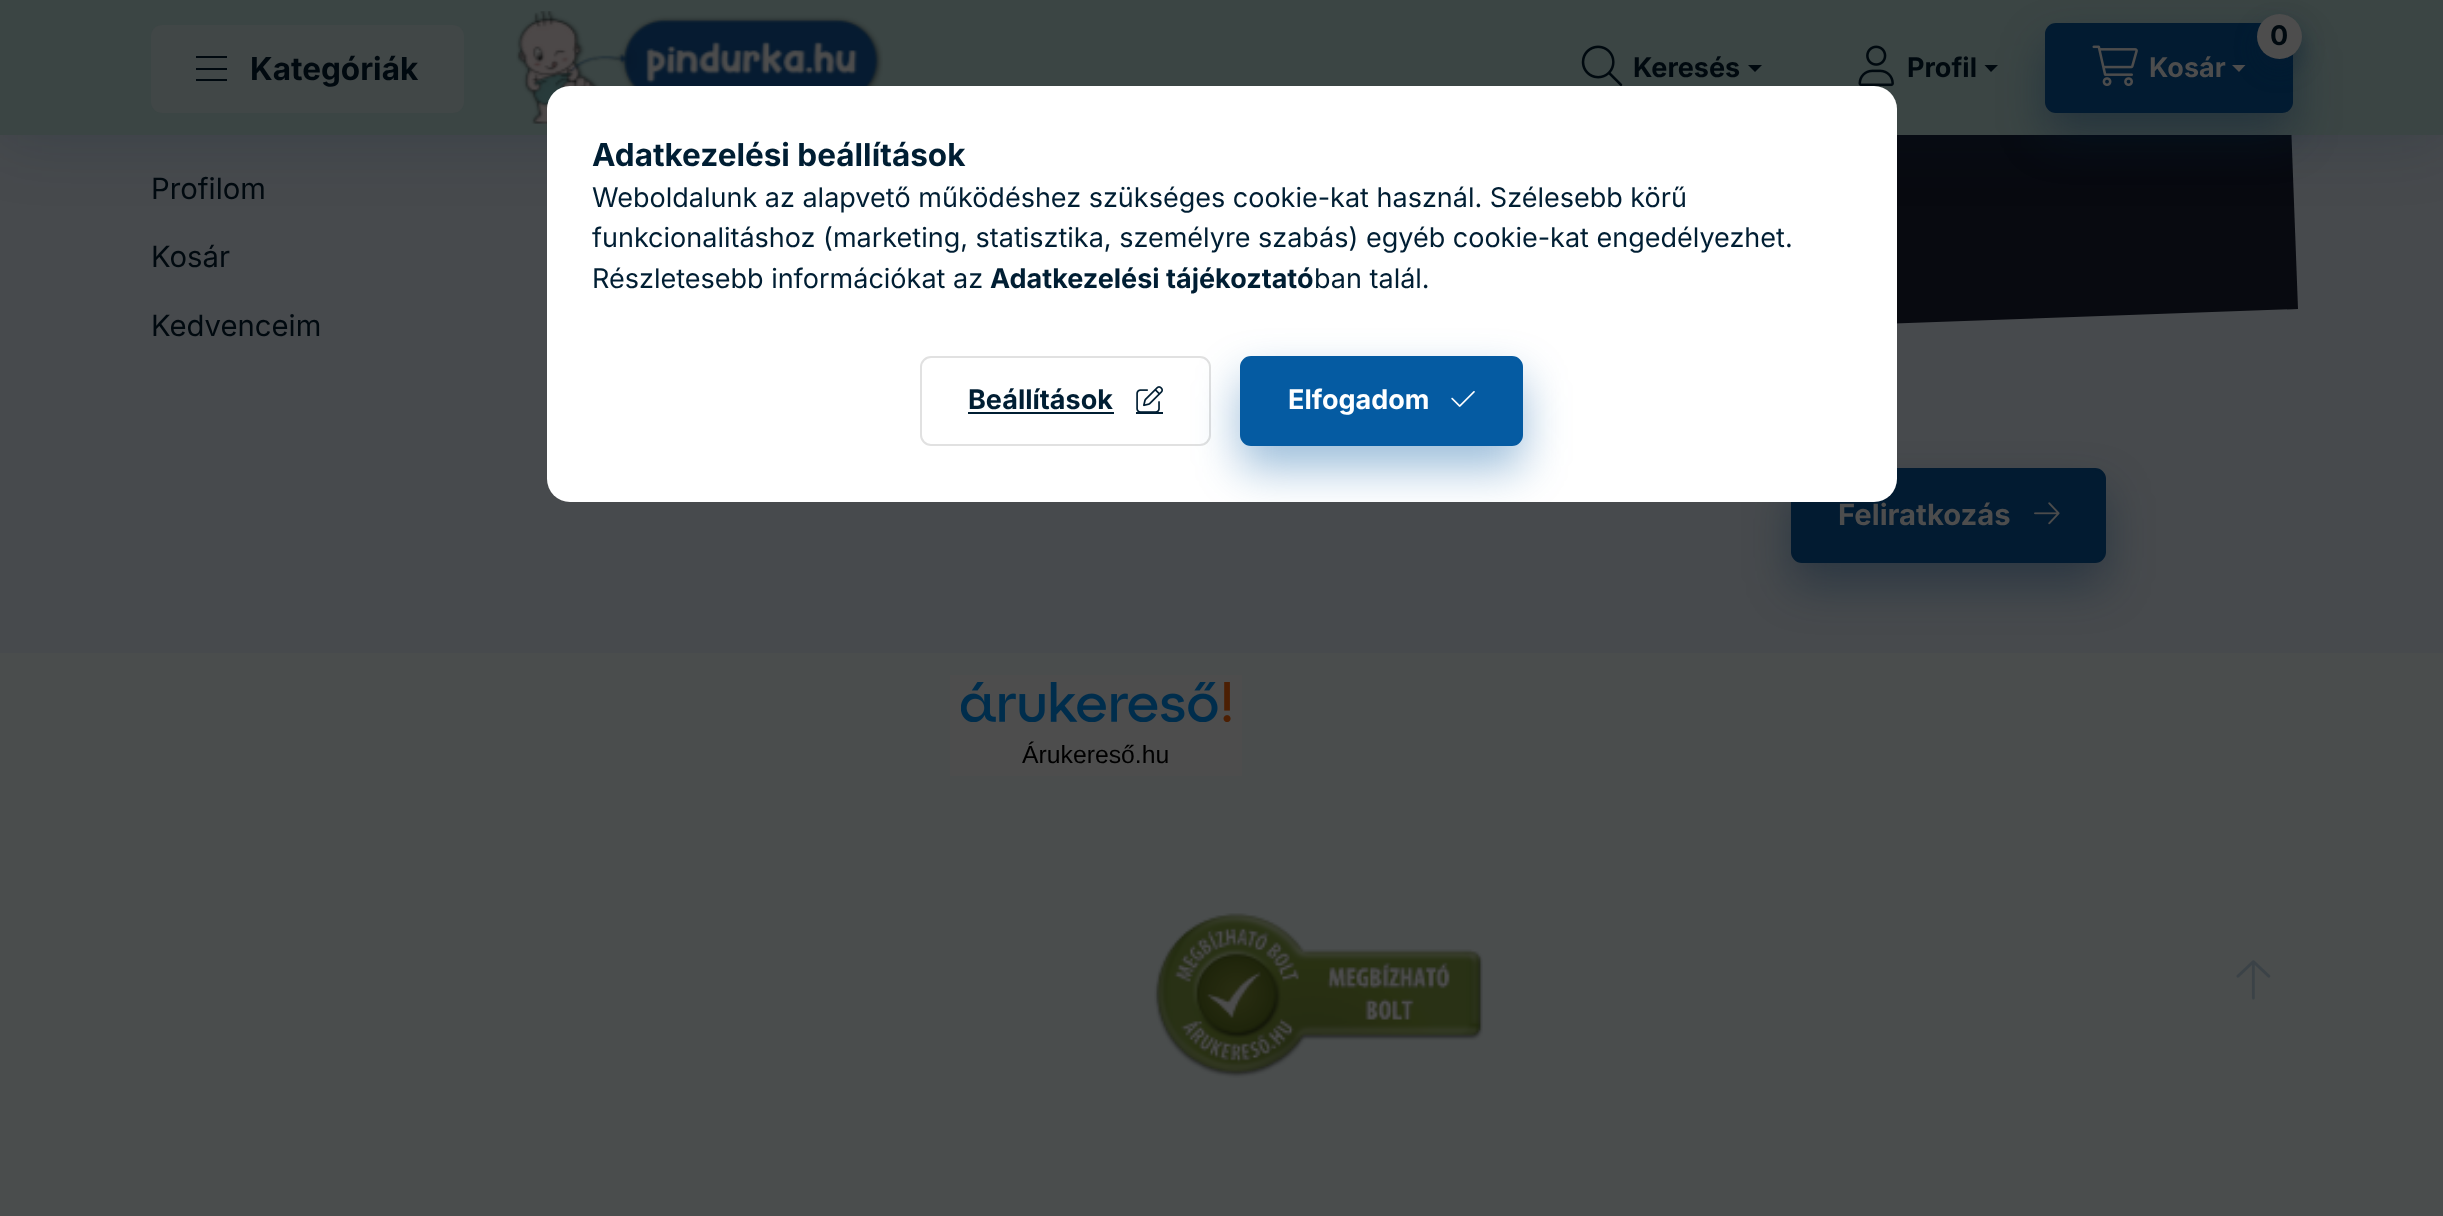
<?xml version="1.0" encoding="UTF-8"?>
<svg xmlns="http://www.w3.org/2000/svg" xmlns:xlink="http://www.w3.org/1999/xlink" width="2443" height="1216">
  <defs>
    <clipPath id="clip1"><rect x="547" y="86" width="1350" height="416" rx="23" /></clipPath>
  </defs>
  <rect width="100%" height="100%" fill="#4a4d4d" />
  <rect y="135" width="2443" height="518" fill="#474a4d" />
  <path d="M 1786 34 l 501 -17 l 11 292 l -502 18 z" fill="#080a10" />
  <rect width="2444" height="135" fill="#021b31" fill-opacity="0.2" filter="blur(34px)" />
  <rect width="2443" height="135" fill="#3b4544" />
  <rect x="151" y="25" width="313" height="88" rx="11" fill="#414747" />
  <rect x="196" y="56" width="31" height="2" fill="#00090f" />
  <rect x="196" y="68" width="31" height="2" fill="#00090f" />
  <rect x="196" y="79" width="31" height="2" fill="#00090f" />
  <image x="516" y="11" width="367" height="113" xlink:href="image1.png" />
  <image x="1581" y="45" width="42" height="41" xlink:href="image2.png" />
  <path d="M 1748 65 h 14 l -7 7 z" fill="#00090f" />
  <image x="1858" y="45" width="36" height="42" xlink:href="image3.png" />
  <rect x="2045" y="45" width="248" height="90" rx="11" fill="#021b31" fill-opacity="0.4" filter="blur(22.5px)" />
  <path d="M 1984.5 65 h 13.5 l -7 7 z" fill="#00090f" />
  <rect x="2045" y="23" width="248" height="90" rx="11" fill="#021b31" />
  <rect x="2257" y="25" width="45" height="45" rx="22.5" fill="#021b31" fill-opacity="0.4" filter="blur(11px)" />
  <circle cx="2279.5" cy="36.5" r="22.5" fill="#4d4d4d" />
  <image x="2092" y="45" width="46" height="42" xlink:href="image4.png" />
  <path d="M 2232 65 h 13.5 l -6.5 7 z" fill="#4d4d4d" />
  <rect x="1791" y="491" width="315" height="94" rx="11" fill="#021b31" fill-opacity="0.4" filter="blur(22.5px)" />
  <rect x="1792" y="469" width="313" height="93" rx="10" fill="#021b31" stroke="#021b31" stroke-width="2" />
  <image x="2034" y="502" width="26" height="23" xlink:href="image5.png" />
  <rect x="950" y="675" width="292" height="101" fill="#4d4d4d" />
  <image x="961" y="682" width="270" height="40" xlink:href="image6.png" />
  <image x="1154" y="913" width="329" height="165" xlink:href="image7.png" />
  <rect x="547" y="86" width="1350" height="416" rx="23" fill="#ffffff" />
  <rect x="921" y="357" width="289" height="88" rx="10" fill="none" stroke="#e1e1e1" stroke-width="2" />
  <rect x="968" y="412" width="146" height="2" fill="#001e33" />
  <image x="1136" y="386" width="27" height="26" xlink:href="image8.png" />
  <rect x="1136" y="412" width="27" height="2" fill="#001e33" />
  <g clip-path="url(#clip1)">
    <rect x="1240" y="378" width="283" height="90" rx="11" fill="#055ba2" fill-opacity="0.4" filter="blur(22.5px)" />
  </g>
  <rect x="1241" y="357" width="281" height="88" rx="10" fill="#055ba2" stroke="#055ba2" stroke-width="2" />
  <image x="1451" y="391" width="24" height="16" xlink:href="image9.png" />
  <image x="2236" y="960" width="35" height="40" xlink:href="image10.png" />
  <text x="250" y="80" style="font-family: Inter; font-size: 31.5px; font-weight: bold; fill: #00090f">Kategóriák</text>
  <text x="1633" y="77" style="font-family: Inter; font-size: 27px; font-weight: bold; fill: #00090f">Keresés</text>
  <text x="1907" y="77" style="font-family: Inter; font-size: 27px; font-weight: bold; fill: #00090f">Profil</text>
  <text x="2270" y="45" style="font-family: Inter; font-size: 27px; font-weight: bold; fill: #00090f">0</text>
  <text x="2149" y="77" style="font-family: Inter; font-size: 27px; font-weight: bold; fill: #4d4d4d">Kosár</text>
  <text x="151" y="199" style="font-family: Inter; font-size: 29.25px; fill: #00090f">Profilom</text>
  <text x="151" y="267" style="font-family: Inter; font-size: 29.25px; fill: #00090f">Kosár</text>
  <text x="151" y="336" style="font-family: Inter; font-size: 29.25px; fill: #00090f">Kedvenceim</text>
  <text x="1838" y="525" style="font-family: Inter; font-size: 29.25px; font-weight: bold; fill: #4d4d4d">Feliratkozás</text>
  <text x="1022" y="763" style="font-family: Liberation Sans; font-size: 24.75px; fill: #000000">Árukereső.hu</text>
  <text x="592" y="166" style="font-family: Inter; font-size: 31.5px; font-weight: bold; fill: #001e33">Adatkezelési beállítások</text>
  <text x="592" y="207" style="font-family: Inter; font-size: 27px; fill: #001e33">Weboldalunk az alapvető működéshez szükséges cookie-kat használ. Szélesebb körű</text>
  <text x="592" y="247" style="font-family: Inter; font-size: 27px; fill: #001e33">funkcionalitáshoz (marketing, statisztika, személyre szabás) egyéb cookie-kat engedélyezhet.</text>
  <text x="592" y="288" style="font-family: Inter; font-size: 27px; fill: #001e33">Részletesebb információkat az</text>
  <text x="990" y="288" style="font-family: Inter; font-size: 27px; font-weight: bold; fill: #001e33">Adatkezelési tájékoztató</text>
  <text x="1314" y="288" style="font-family: Inter; font-size: 27px; fill: #001e33">ban talál.</text>
  <text x="968" y="409" style="font-family: Inter; font-size: 27px; font-weight: bold; fill: #001e33">Beállítások</text>
  <text x="1288" y="409" style="font-family: Inter; font-size: 27px; font-weight: bold; fill: #ffffff">Elfogadom</text>
</svg>
